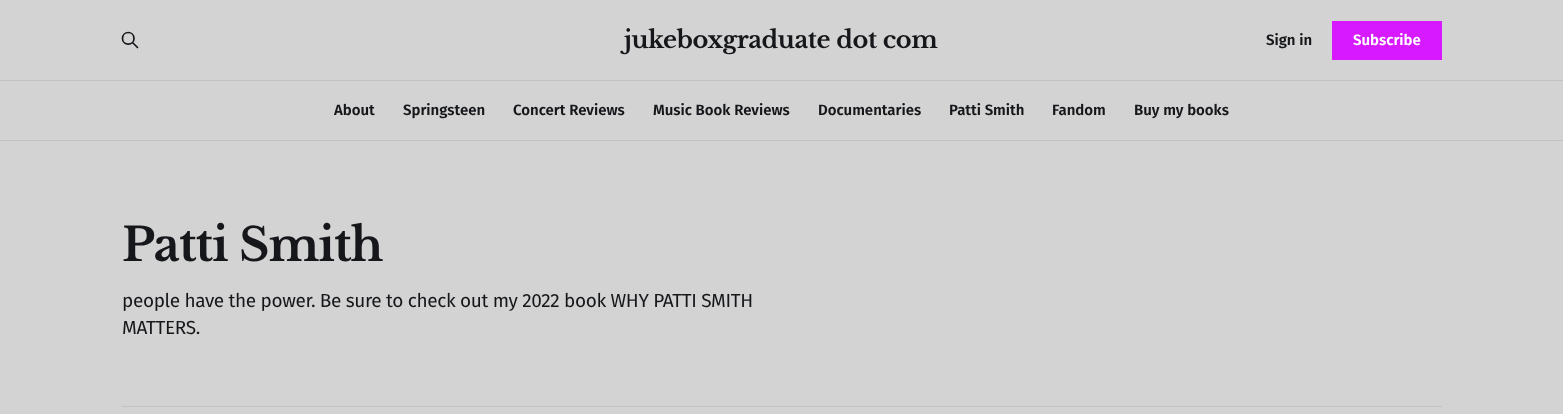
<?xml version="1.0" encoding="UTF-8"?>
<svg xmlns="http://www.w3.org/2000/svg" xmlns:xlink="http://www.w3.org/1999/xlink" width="1563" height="414">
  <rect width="100%" height="100%" fill="#d3d3d3" />
  <path d="M 137.5 47.5 l -5 -5 m 1.5 -4 c 0 7.5 -11.5 7.5 -11.5 0 c 0 -8 11.5 -8 11.5 0 z" fill="none" stroke="#15171a" stroke-width="1.7" stroke-linecap="round" stroke-linejoin="round" />
  <rect x="1332" y="21" width="110" height="39" fill="#d719ff" />
  <rect y="80" width="1563" height="1" fill="#c2c2c2" />
  <rect y="140" width="1563" height="1" fill="#c2c2c2" />
  <rect x="122" y="406" width="1320" height="1" fill="#c2c2c2" />
  <text x="624" y="48" style="font-family: Libre Baskerville; font-size: 24px; font-weight: bold; letter-spacing: -0.4px; fill: #15171a">jukeboxgraduate dot com</text>
  <text x="1266" y="45" style="font-family: Fira Sans; font-size: 15px; font-weight: 600; fill: #15171a">Sign in</text>
  <text x="1353" y="45" style="font-family: Fira Sans; font-size: 15px; font-weight: 600; fill: #ffffff">Subscribe</text>
  <text x="334" y="115" style="font-family: Fira Sans; font-size: 15px; font-weight: 600; fill: #15171a">About</text>
  <text x="403" y="115" style="font-family: Fira Sans; font-size: 15px; font-weight: 600; fill: #15171a">Springsteen</text>
  <text x="513" y="115" style="font-family: Fira Sans; font-size: 15px; font-weight: 600; fill: #15171a">Concert Reviews</text>
  <text x="653" y="115" style="font-family: Fira Sans; font-size: 15px; font-weight: 600; fill: #15171a">Music Book Reviews</text>
  <text x="818" y="115" style="font-family: Fira Sans; font-size: 15px; font-weight: 600; fill: #15171a">Documentaries</text>
  <text x="949" y="115" style="font-family: Fira Sans; font-size: 15px; font-weight: 600; fill: #15171a">Patti Smith</text>
  <text x="1052" y="115" style="font-family: Fira Sans; font-size: 15px; font-weight: 600; fill: #15171a">Fandom</text>
  <text x="1134" y="115" style="font-family: Fira Sans; font-size: 15px; font-weight: 600; fill: #15171a">Buy my books</text>
  <text x="122" y="261" style="font-family: Libre Baskerville; font-size: 46px; font-weight: bold; letter-spacing: -1px; fill: #15171a">Patti Smith</text>
  <text x="122" y="307" style="font-family: Fira Sans; font-size: 19px; letter-spacing: -0.35px; fill: #15171a">people have the power. Be sure to check out my 2022 book WHY PATTI SMITH</text>
  <text x="122" y="334" style="font-family: Fira Sans; font-size: 19px; letter-spacing: -0.35px; fill: #15171a">MATTERS.</text>
</svg>
